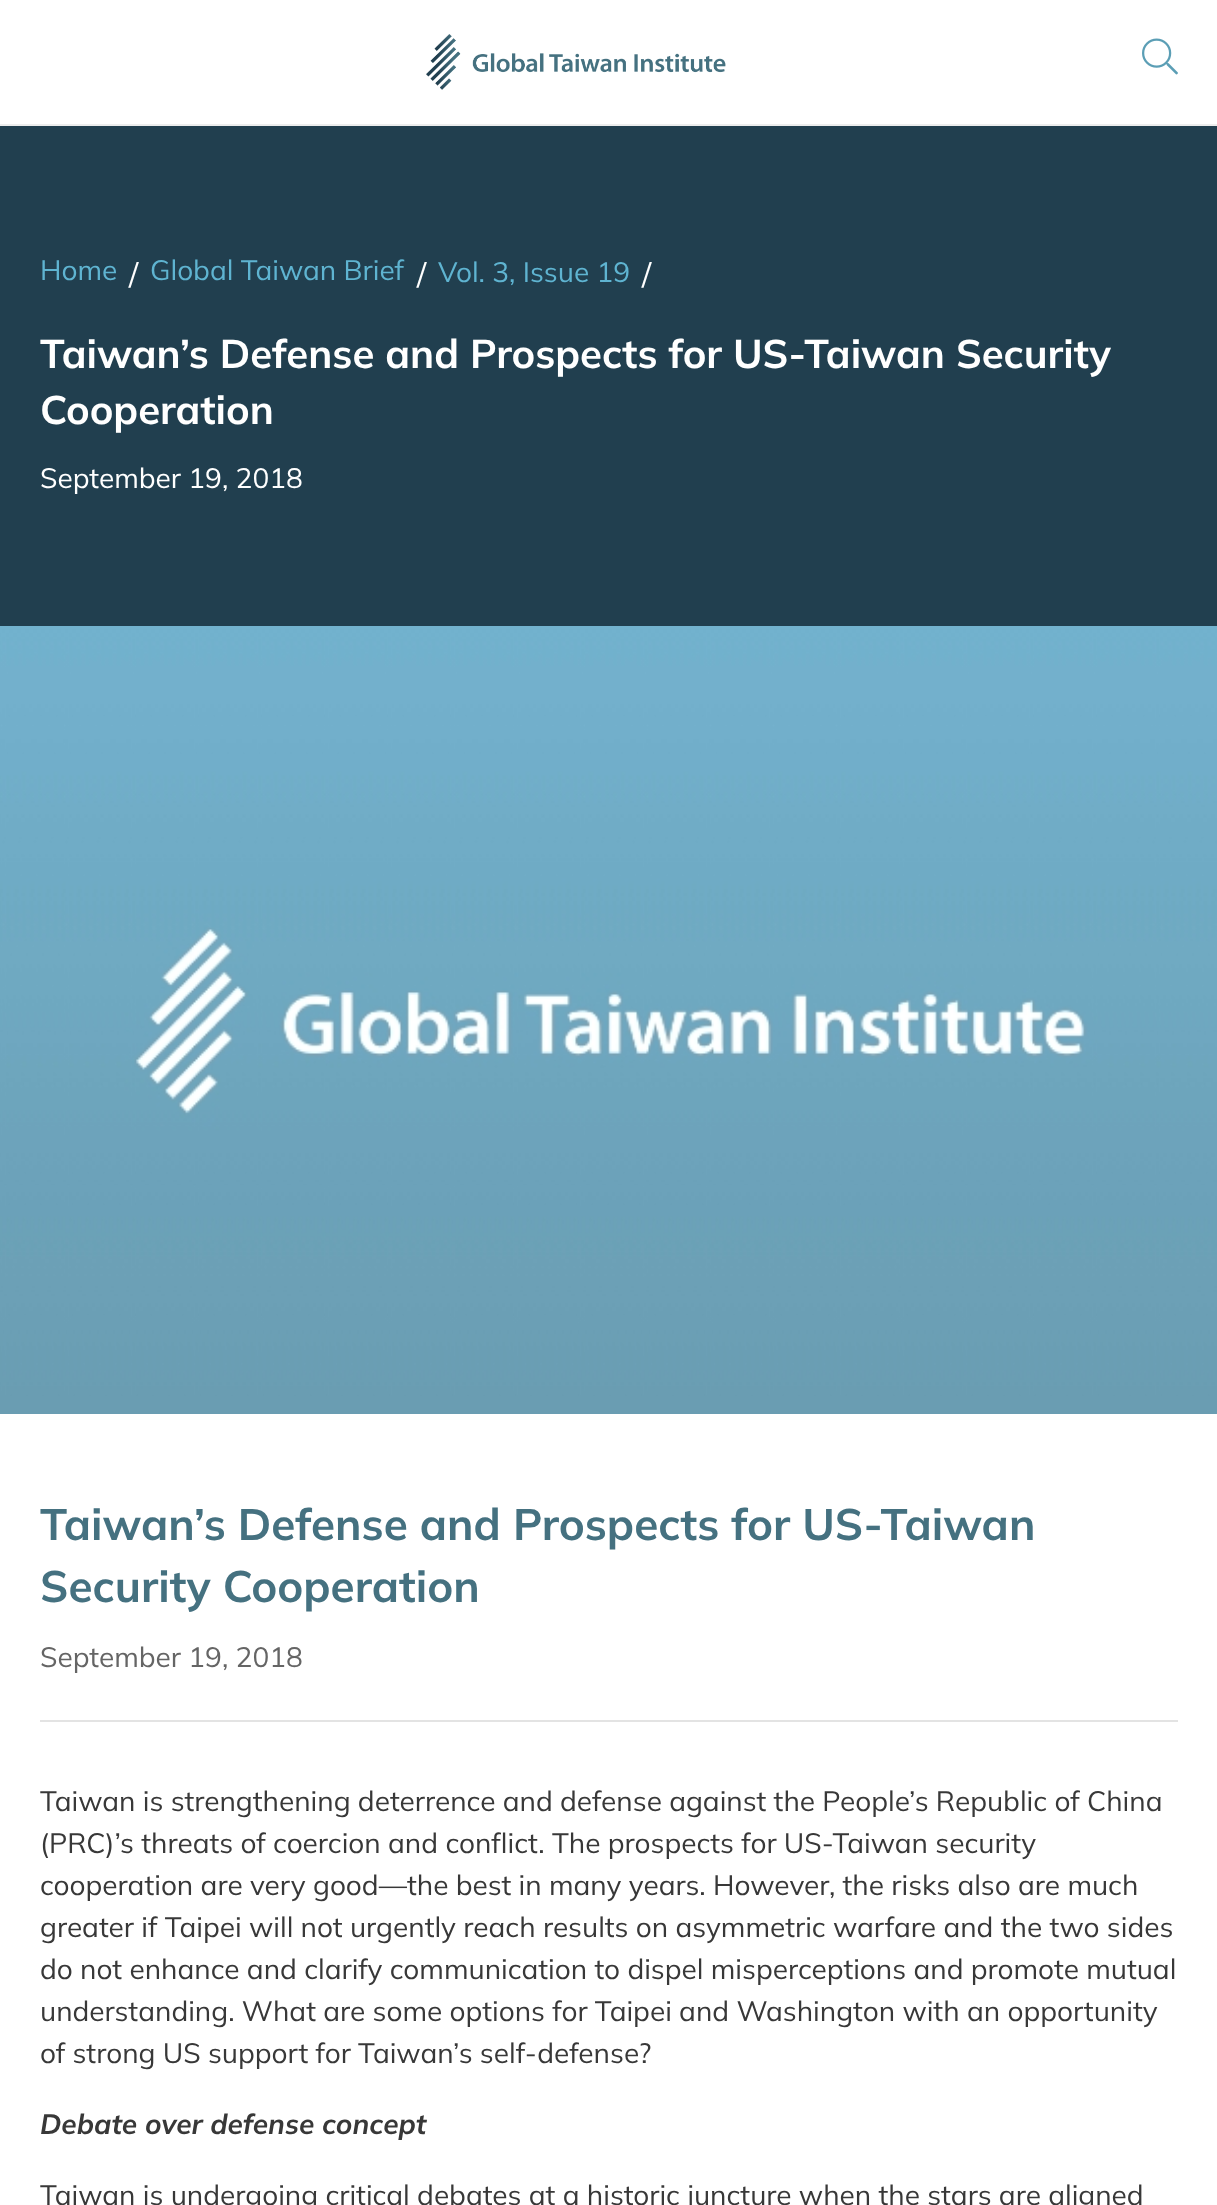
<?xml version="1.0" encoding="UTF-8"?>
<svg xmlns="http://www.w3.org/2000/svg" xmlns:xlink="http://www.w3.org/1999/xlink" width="1217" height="2205">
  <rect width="100%" height="100%" fill="#ffffff" />
  <rect y="124" width="1217" height="2" fill="#ededed" />
  <image x="426" y="34" width="300" height="56" xlink:href="image1.png" />
  <image x="1142" y="38" width="36" height="37" xlink:href="image2.png" />
  <rect y="126" width="1217" height="500" fill="#213f4f" />
  <image x="0" y="626" width="1217" height="788" xlink:href="image3.png" />
  <rect x="40" y="1720" width="1138" height="2" fill="#e3e3e3" />
  <text x="40" y="280" style="font-family: Mulish; font-size: 28px; fill: #5fb4d1">Home</text>
  <text x="129" y="286" style="font-family: Mulish; font-size: 32px; fill: #ffffff">/</text>
  <text x="150" y="280" style="font-family: Mulish; font-size: 28px; fill: #5fb4d1">Global Taiwan Brief</text>
  <text x="417" y="286" style="font-family: Mulish; font-size: 32px; fill: #ffffff">/</text>
  <text x="438" y="282" style="font-family: Mulish; font-size: 28px; fill: #5fb4d1">Vol. 3, Issue 19</text>
  <text x="642" y="286" style="font-family: Mulish; font-size: 32px; fill: #ffffff">/</text>
  <text x="40" y="368" style="font-family: Mulish; font-size: 40px; font-weight: bold; fill: #ffffff">Taiwan’s Defense and Prospects for US-Taiwan Security</text>
  <text x="40" y="424" style="font-family: Mulish; font-size: 40px; font-weight: bold; fill: #ffffff">Cooperation</text>
  <text x="40" y="488" style="font-family: Mulish; font-size: 28px; fill: #ffffff">September 19, 2018</text>
  <text x="40" y="1540" style="font-family: Mulish; font-size: 44px; font-weight: bold; fill: #457180">Taiwan’s Defense and Prospects for US-Taiwan</text>
  <text x="40" y="1602" style="font-family: Mulish; font-size: 44px; font-weight: bold; fill: #457180">Security Cooperation</text>
  <text x="40" y="1667" style="font-family: Mulish; font-size: 28px; fill: #656565">September 19, 2018</text>
  <text x="40" y="1811" style="font-family: Mulish; font-size: 28px; fill: #383838">Taiwan is strengthening deterrence and defense against the People’s Republic of China</text>
  <text x="40" y="1853" style="font-family: Mulish; font-size: 28px; fill: #383838">(PRC)’s threats of coercion and conflict. The prospects for US-Taiwan security</text>
  <text x="40" y="1895" style="font-family: Mulish; font-size: 28px; fill: #383838">cooperation are very good—the best in many years. However, the risks also are much</text>
  <text x="40" y="1937" style="font-family: Mulish; font-size: 28px; fill: #383838">greater if Taipei will not urgently reach results on asymmetric warfare and the two sides</text>
  <text x="40" y="1979" style="font-family: Mulish; font-size: 28px; fill: #383838">do not enhance and clarify communication to dispel misperceptions and promote mutual</text>
  <text x="40" y="2021" style="font-family: Mulish; font-size: 28px; fill: #383838">understanding. What are some options for Taipei and Washington with an opportunity</text>
  <text x="40" y="2063" style="font-family: Mulish; font-size: 28px; fill: #383838">of strong US support for Taiwan’s self-defense?</text>
  <text x="40" y="2134" style="font-family: Mulish; font-size: 28px; font-weight: bold; font-style: italic; fill: #383838">Debate over defense concept</text>
  <text x="40" y="2205" style="font-family: Mulish; font-size: 28px; fill: #383838">Taiwan is undergoing critical debates at a historic juncture when the stars are aligned</text>
</svg>
